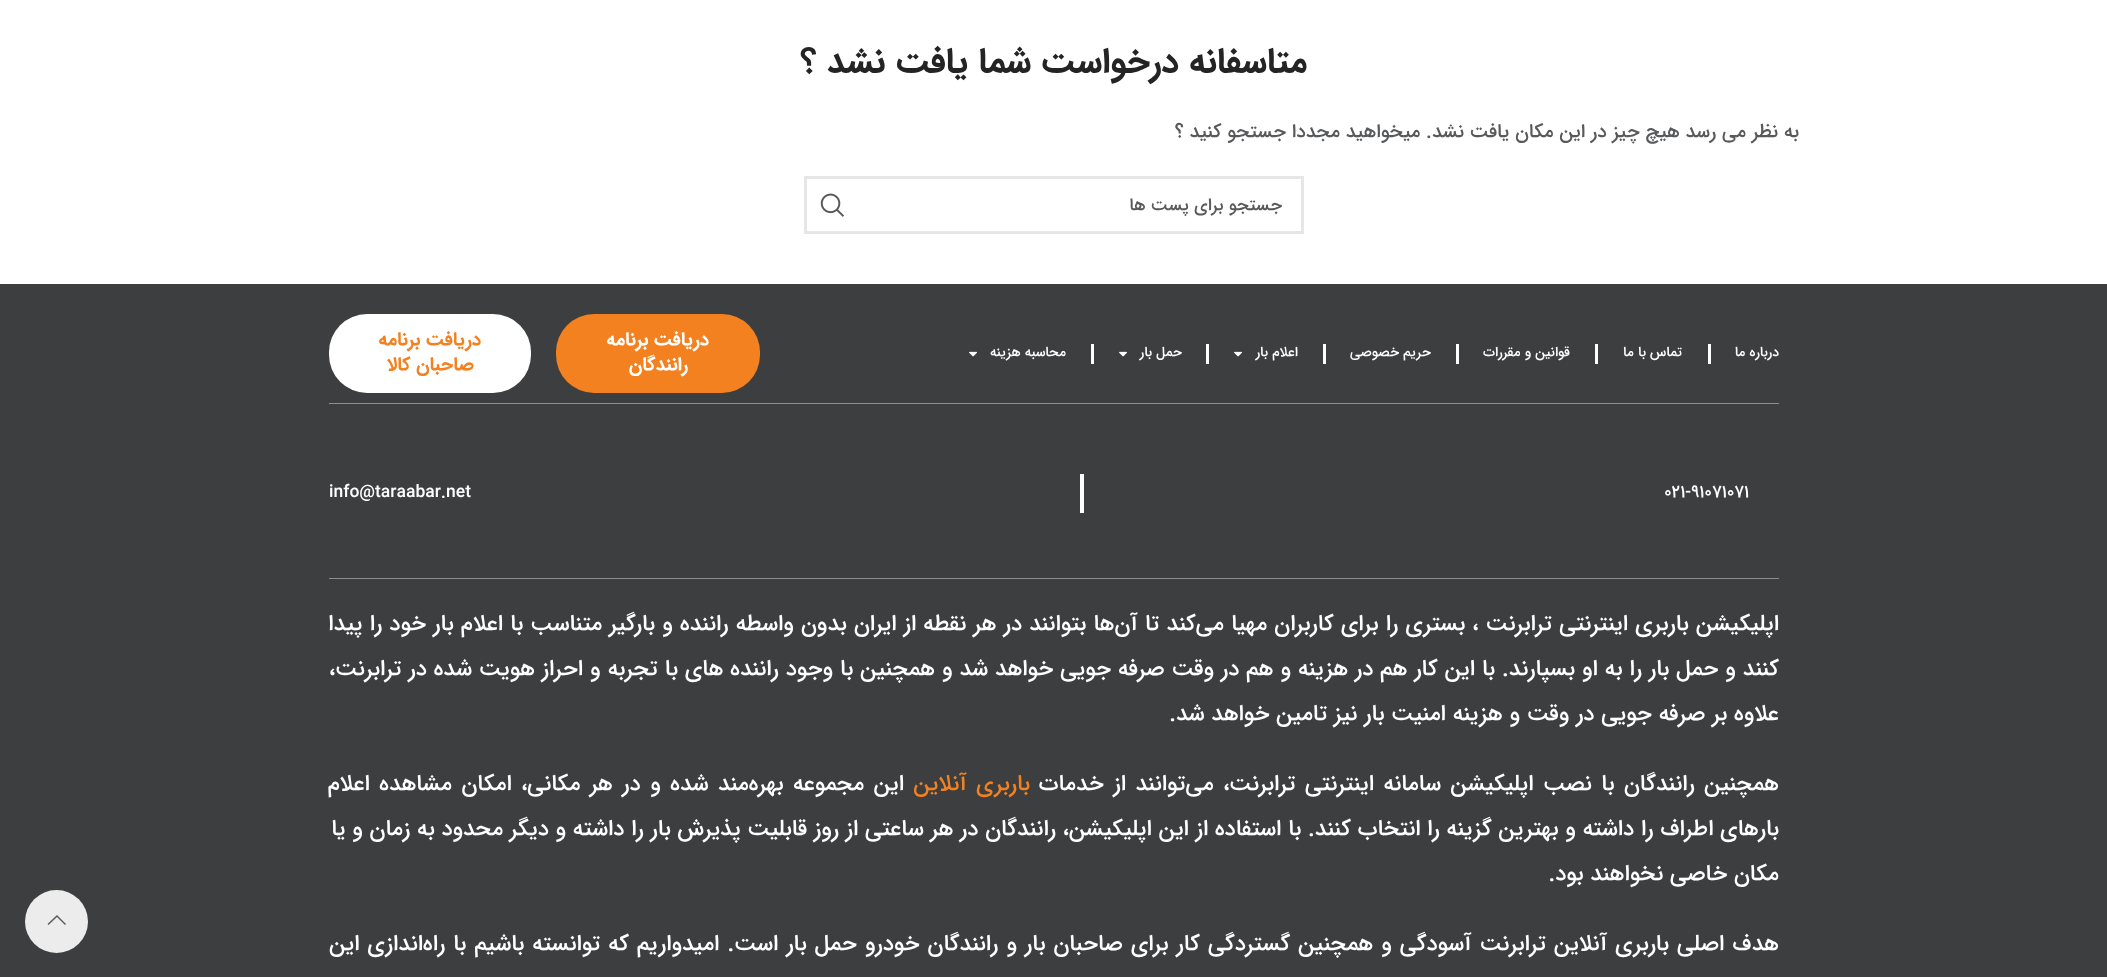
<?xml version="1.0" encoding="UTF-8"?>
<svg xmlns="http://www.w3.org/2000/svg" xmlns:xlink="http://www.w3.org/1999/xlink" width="2107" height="977">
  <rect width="100%" height="100%" fill="#ffffff" />
  <rect x="805.5" y="177.5" width="497" height="55" fill="none" stroke="#e6e6e6" stroke-width="3" />
  <image x="820" y="193" width="24" height="24" xlink:href="image1.png" />
  <rect y="284" width="2107" height="693" fill="#3d3e3f" />
  <rect x="1708" y="344" width="3" height="20" fill="#ffffff" />
  <rect x="1595" y="344" width="3" height="20" fill="#ffffff" />
  <rect x="1456" y="344" width="3" height="20" fill="#ffffff" />
  <rect x="1323" y="344" width="3" height="20" fill="#ffffff" />
  <image x="1234" y="351" width="8" height="6" xlink:href="image2.png" />
  <rect x="1206" y="344" width="3" height="20" fill="#ffffff" />
  <image x="1119" y="351" width="8" height="6" xlink:href="image2.png" />
  <rect x="1091" y="344" width="3" height="20" fill="#ffffff" />
  <image x="969" y="351" width="8" height="6" xlink:href="image2.png" />
  <rect x="556" y="314" width="204" height="79" rx="38" fill="#f48120" />
  <rect x="329" y="314" width="202" height="79" rx="38" fill="#ffffff" />
  <rect x="329" y="403" width="1450" height="1" fill="#8d8d8d" />
  <rect x="1080" y="474" width="4" height="39" fill="#ffffff" />
  <rect x="329" y="578" width="1450" height="1" fill="#8d8d8d" />
  <circle cx="56.5" cy="921.5" r="31.5" fill="#ffffff" fill-opacity="0.9" />
  <path d="M 65 925 l 1 -1 l -9 -9 l -9.5 9 l 1 1 l 8.5 -8 z" fill="#58595b" />
  <text x="1307" y="72" style="font-family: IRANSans; font-size: 35px; font-weight: bold; direction: rtl; fill: #242424">متاسفانه درخواست شما یافت نشد ؟</text>
  <text x="1799" y="137" style="font-family: IRANSans; font-size: 19.25px; font-weight: 500; direction: rtl; fill: #58595b">به نظر می رسد هیچ چیز در این مکان یافت نشد. میخواهید مجددا جستجو کنید ؟</text>
  <text x="1282" y="210" style="font-family: IRANSans; font-size: 17.5px; font-weight: 500; direction: rtl; fill: #58595b">جستجو برای پست ها</text>
  <text x="1779" y="356" style="font-family: IRANSans; font-size: 13.75px; font-weight: 500; direction: rtl; fill: #ffffff">درباره ما</text>
  <text x="1682" y="356" style="font-family: IRANSans; font-size: 13.75px; font-weight: 500; direction: rtl; fill: #ffffff">تماس با ما</text>
  <text x="1570" y="356" style="font-family: IRANSans; font-size: 13.75px; font-weight: 500; direction: rtl; fill: #ffffff">قوانین و مقررات</text>
  <text x="1431" y="356" style="font-family: IRANSans; font-size: 13.75px; font-weight: 500; direction: rtl; fill: #ffffff">حریم خصوصی</text>
  <text x="1298" y="356" style="font-family: IRANSans; font-size: 13.75px; font-weight: 500; direction: rtl; fill: #ffffff">اعلام بار</text>
  <text x="1182" y="356" style="font-family: IRANSans; font-size: 13.75px; font-weight: 500; direction: rtl; fill: #ffffff">حمل بار</text>
  <text x="1066" y="356" style="font-family: IRANSans; font-size: 13.75px; font-weight: 500; direction: rtl; fill: #ffffff">محاسبه هزینه</text>
  <text x="709" y="345" style="font-family: IRANSans; font-size: 18.75px; font-weight: bold; direction: rtl; fill: #ffffff">دریافت برنامه</text>
  <text x="688" y="370" style="font-family: IRANSans; font-size: 18.75px; font-weight: bold; direction: rtl; fill: #ffffff">رانندگان</text>
  <text x="481" y="345" style="font-family: IRANSans; font-size: 18.75px; font-weight: bold; direction: rtl; fill: #f48120">دریافت برنامه</text>
  <text x="474" y="370" style="font-family: IRANSans; font-size: 18.75px; font-weight: bold; direction: rtl; fill: #f48120">صاحبان کالا</text>
  <text x="1664" y="497" style="font-family: IRANSans; font-size: 17.5px; font-weight: 500; fill: #ffffff">۰۲۱-۹۱۰۷۱۰۷۱</text>
  <text x="329" y="497" style="font-family: IRANSans; font-size: 17.5px; font-weight: 500; fill: #ffffff">info@taraabar.net</text>
  <text x="1779" y="630" word-spacing="0.4" style="font-family: IRANSans; font-size: 22.5px; font-weight: 500; direction: rtl; fill: #ffffff">اپلیکیشن باربری اینترنتی ترابرنت ، بستری را برای کاربران مهیا می‌کند تا آن‌ها بتوانند در هر نقطه از ایران بدون واسطه راننده و بارگیر متناسب با اعلام بار خود را پیدا</text>
  <text x="1779" y="675" word-spacing="0.2" style="font-family: IRANSans; font-size: 22.5px; font-weight: 500; direction: rtl; fill: #ffffff">کنند و حمل بار را به او بسپارند. با این کار هم در هزینه و هم در وقت صرفه جویی خواهد شد و همچنین با وجود راننده های با تجربه و احراز هویت شده در ترابرنت،</text>
  <text x="1779" y="720" style="font-family: IRANSans; font-size: 22.5px; font-weight: 500; direction: rtl; fill: #ffffff">علاوه بر صرفه جویی در وقت و هزینه امنیت بار نیز تامین خواهد شد.</text>
  <text x="1779" y="790" word-spacing="2.75" style="font-family: IRANSans; font-size: 22.5px; font-weight: 500; direction: rtl; fill: #ffffff">همچنین رانندگان با نصب اپلیکیشن سامانه اینترنتی ترابرنت، می‌توانند از خدمات</text>
  <text x="1030" y="790" word-spacing="2.75" style="font-family: IRANSans; font-size: 22.5px; font-weight: 500; direction: rtl; fill: #f48120">باربری آنلاین</text>
  <text x="904" y="790" word-spacing="2.75" style="font-family: IRANSans; font-size: 22.5px; font-weight: 500; direction: rtl; fill: #ffffff">این مجموعه بهره‌مند شده و در هر مکانی، امکان مشاهده اعلام</text>
  <text x="1779" y="835" style="font-family: IRANSans; font-size: 22.5px; font-weight: 500; direction: rtl; fill: #ffffff">بارهای اطراف را داشته و بهترین گزینه را انتخاب کنند. با استفاده از این اپلیکیشن، رانندگان در هر ساعتی از روز قابلیت پذیرش بار را داشته و دیگر محدود به زمان و یا</text>
  <text x="1779" y="880" style="font-family: IRANSans; font-size: 22.5px; font-weight: 500; direction: rtl; fill: #ffffff">مکان خاصی نخواهند بود.</text>
  <text x="1779" y="950" word-spacing="1.3" style="font-family: IRANSans; font-size: 22.5px; font-weight: 500; direction: rtl; fill: #ffffff">هدف اصلی باربری آنلاین ترابرنت آسودگی و همچنین گستردگی کار برای صاحبان بار و رانندگان خودرو حمل بار است. امیدواریم که توانسته باشیم با راه‌اندازی این</text>
</svg>
